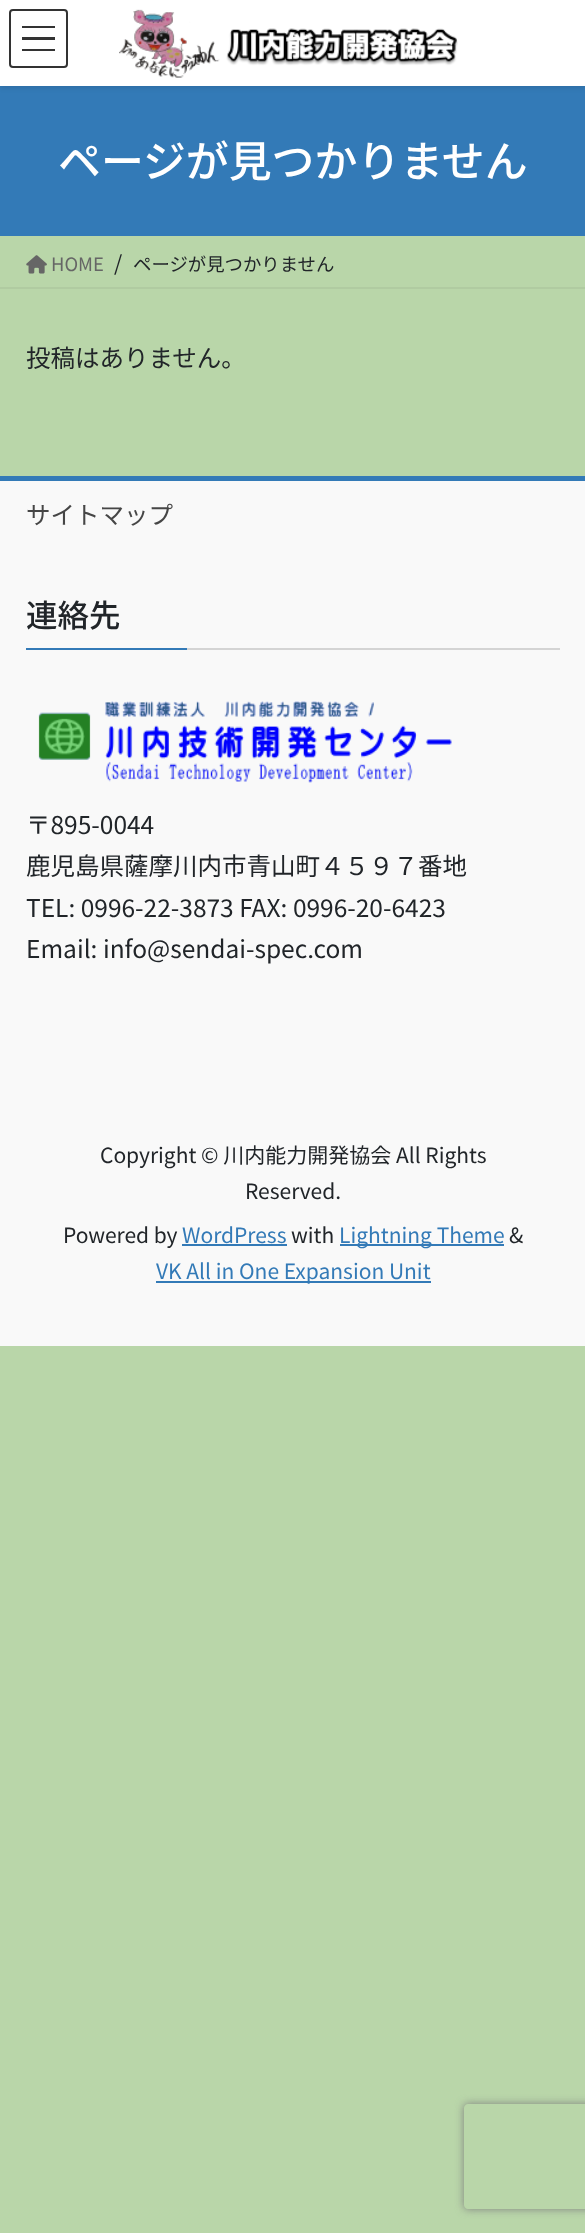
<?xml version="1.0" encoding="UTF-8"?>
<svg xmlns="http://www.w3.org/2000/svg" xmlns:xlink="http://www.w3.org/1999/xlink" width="585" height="2233">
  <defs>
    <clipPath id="clip1"><path d="M 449 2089 h 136 v 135 h -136 z m 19 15 h 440 c 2 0 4 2 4 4 v 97 c 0 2 -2 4 -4 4 h -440 c -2 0 -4 -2 -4 -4 v -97 c 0 -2 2 -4 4 -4 z" clip-rule="evenodd" /></clipPath>
  </defs>
  <rect width="100%" height="100%" fill="#b9d6a9" />
  <rect y="86" width="585" height="150" fill="#337ab7" />
  <rect y="2" width="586" height="86" fill="#000000" fill-opacity="0.1" filter="blur(2.5px)" />
  <rect width="585" height="86" fill="#ffffff" />
  <image x="119" y="9" width="339" height="69" xlink:href="image1.png" />
  <rect x="22" y="26" width="33" height="2" fill="#333333" />
  <rect x="22" y="37" width="33" height="3" fill="#333333" />
  <rect x="22" y="49" width="33" height="2" fill="#333333" />
  <rect x="10" y="10" width="57" height="57" rx="3" fill="none" stroke="#333333" stroke-width="2" />
  <rect y="287" width="585" height="2" fill="#b0cba1" />
  <image x="26" y="255" width="21" height="19" xlink:href="image2.png" />
  <rect y="481" width="585" height="865" fill="#f9f9f9" />
  <rect y="476" width="585" height="5" fill="#337ab7" />
  <rect x="187" y="648" width="373" height="2" fill="#d4d4d4" />
  <rect x="26" y="648" width="161" height="2" fill="#337ab7" />
  <image x="38" y="701" width="414" height="82" xlink:href="image3.png" />
  <rect x="182" y="1244" width="105" height="2" fill="#337ab7" />
  <rect x="340" y="1244" width="164" height="2" fill="#337ab7" />
  <rect x="156" y="1281" width="275" height="2" fill="#337ab7" />
  <g clip-path="url(#clip1)">
    <rect x="464" y="2104" width="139" height="105" rx="4" fill="#808080" filter="blur(4.5px)" />
  </g>
  <text x="58" y="177" style="font-family: Noto Sans JP; font-size: 42.9px; font-weight: 500; fill: #ffffff">ページが見つかりません</text>
  <text x="51" y="271" style="font-family: Noto Sans JP; font-size: 18.4px; fill: #666666">HOME</text>
  <text x="114" y="271" style="font-family: Noto Sans JP; font-size: 21px; fill: #212529">/</text>
  <text x="133" y="271" style="font-family: Noto Sans JP; font-size: 18.4px; fill: #212529">ページが見つかりません</text>
  <text x="26" y="367" style="font-family: Noto Sans JP; font-size: 24.5px; fill: #212529">投稿はありません。</text>
  <text x="26" y="524" style="font-family: Noto Sans JP; font-size: 24.5px; fill: #464646">サイトマップ</text>
  <text x="26" y="627" style="font-family: Noto Sans JP; font-size: 31.5px; font-weight: 500; fill: #212529">連絡先</text>
  <text x="26" y="834" style="font-family: Noto Sans JP; font-size: 24.5px; fill: #212529">〒895-0044</text>
  <text x="26" y="875" style="font-family: Noto Sans JP; font-size: 24.5px; fill: #212529">鹿児島県薩摩川内市青山町４５９７番地</text>
  <text x="26" y="917" style="font-family: Noto Sans JP; font-size: 24.5px; fill: #212529">TEL: 0996-22-3873 FAX: 0996-20-6423</text>
  <text x="26" y="958" style="font-family: Noto Sans JP; font-size: 24.5px; fill: #212529">Email: info@sendai-spec.com</text>
  <text x="100" y="1163" style="font-family: Noto Sans JP; font-size: 21px; fill: #212529">Copyright © 川内能力開発協会 All Rights</text>
  <text x="245" y="1199" style="font-family: Noto Sans JP; font-size: 21px; fill: #212529">Reserved.</text>
  <text x="63" y="1243" style="font-family: Noto Sans JP; font-size: 21px; fill: #212529">Powered by</text>
  <text x="182" y="1243" style="font-family: Noto Sans JP; font-size: 21px; fill: #337ab7">WordPress</text>
  <text x="291" y="1243" style="font-family: Noto Sans JP; font-size: 21px; fill: #212529">with</text>
  <text x="339" y="1243" style="font-family: Noto Sans JP; font-size: 21px; fill: #337ab7">Lightning Theme</text>
  <text x="509" y="1243" style="font-family: Noto Sans JP; font-size: 21px; fill: #212529">&amp;</text>
  <text x="156" y="1279" style="font-family: Noto Sans JP; font-size: 21px; fill: #337ab7">VK All in One Expansion Unit</text>
</svg>
